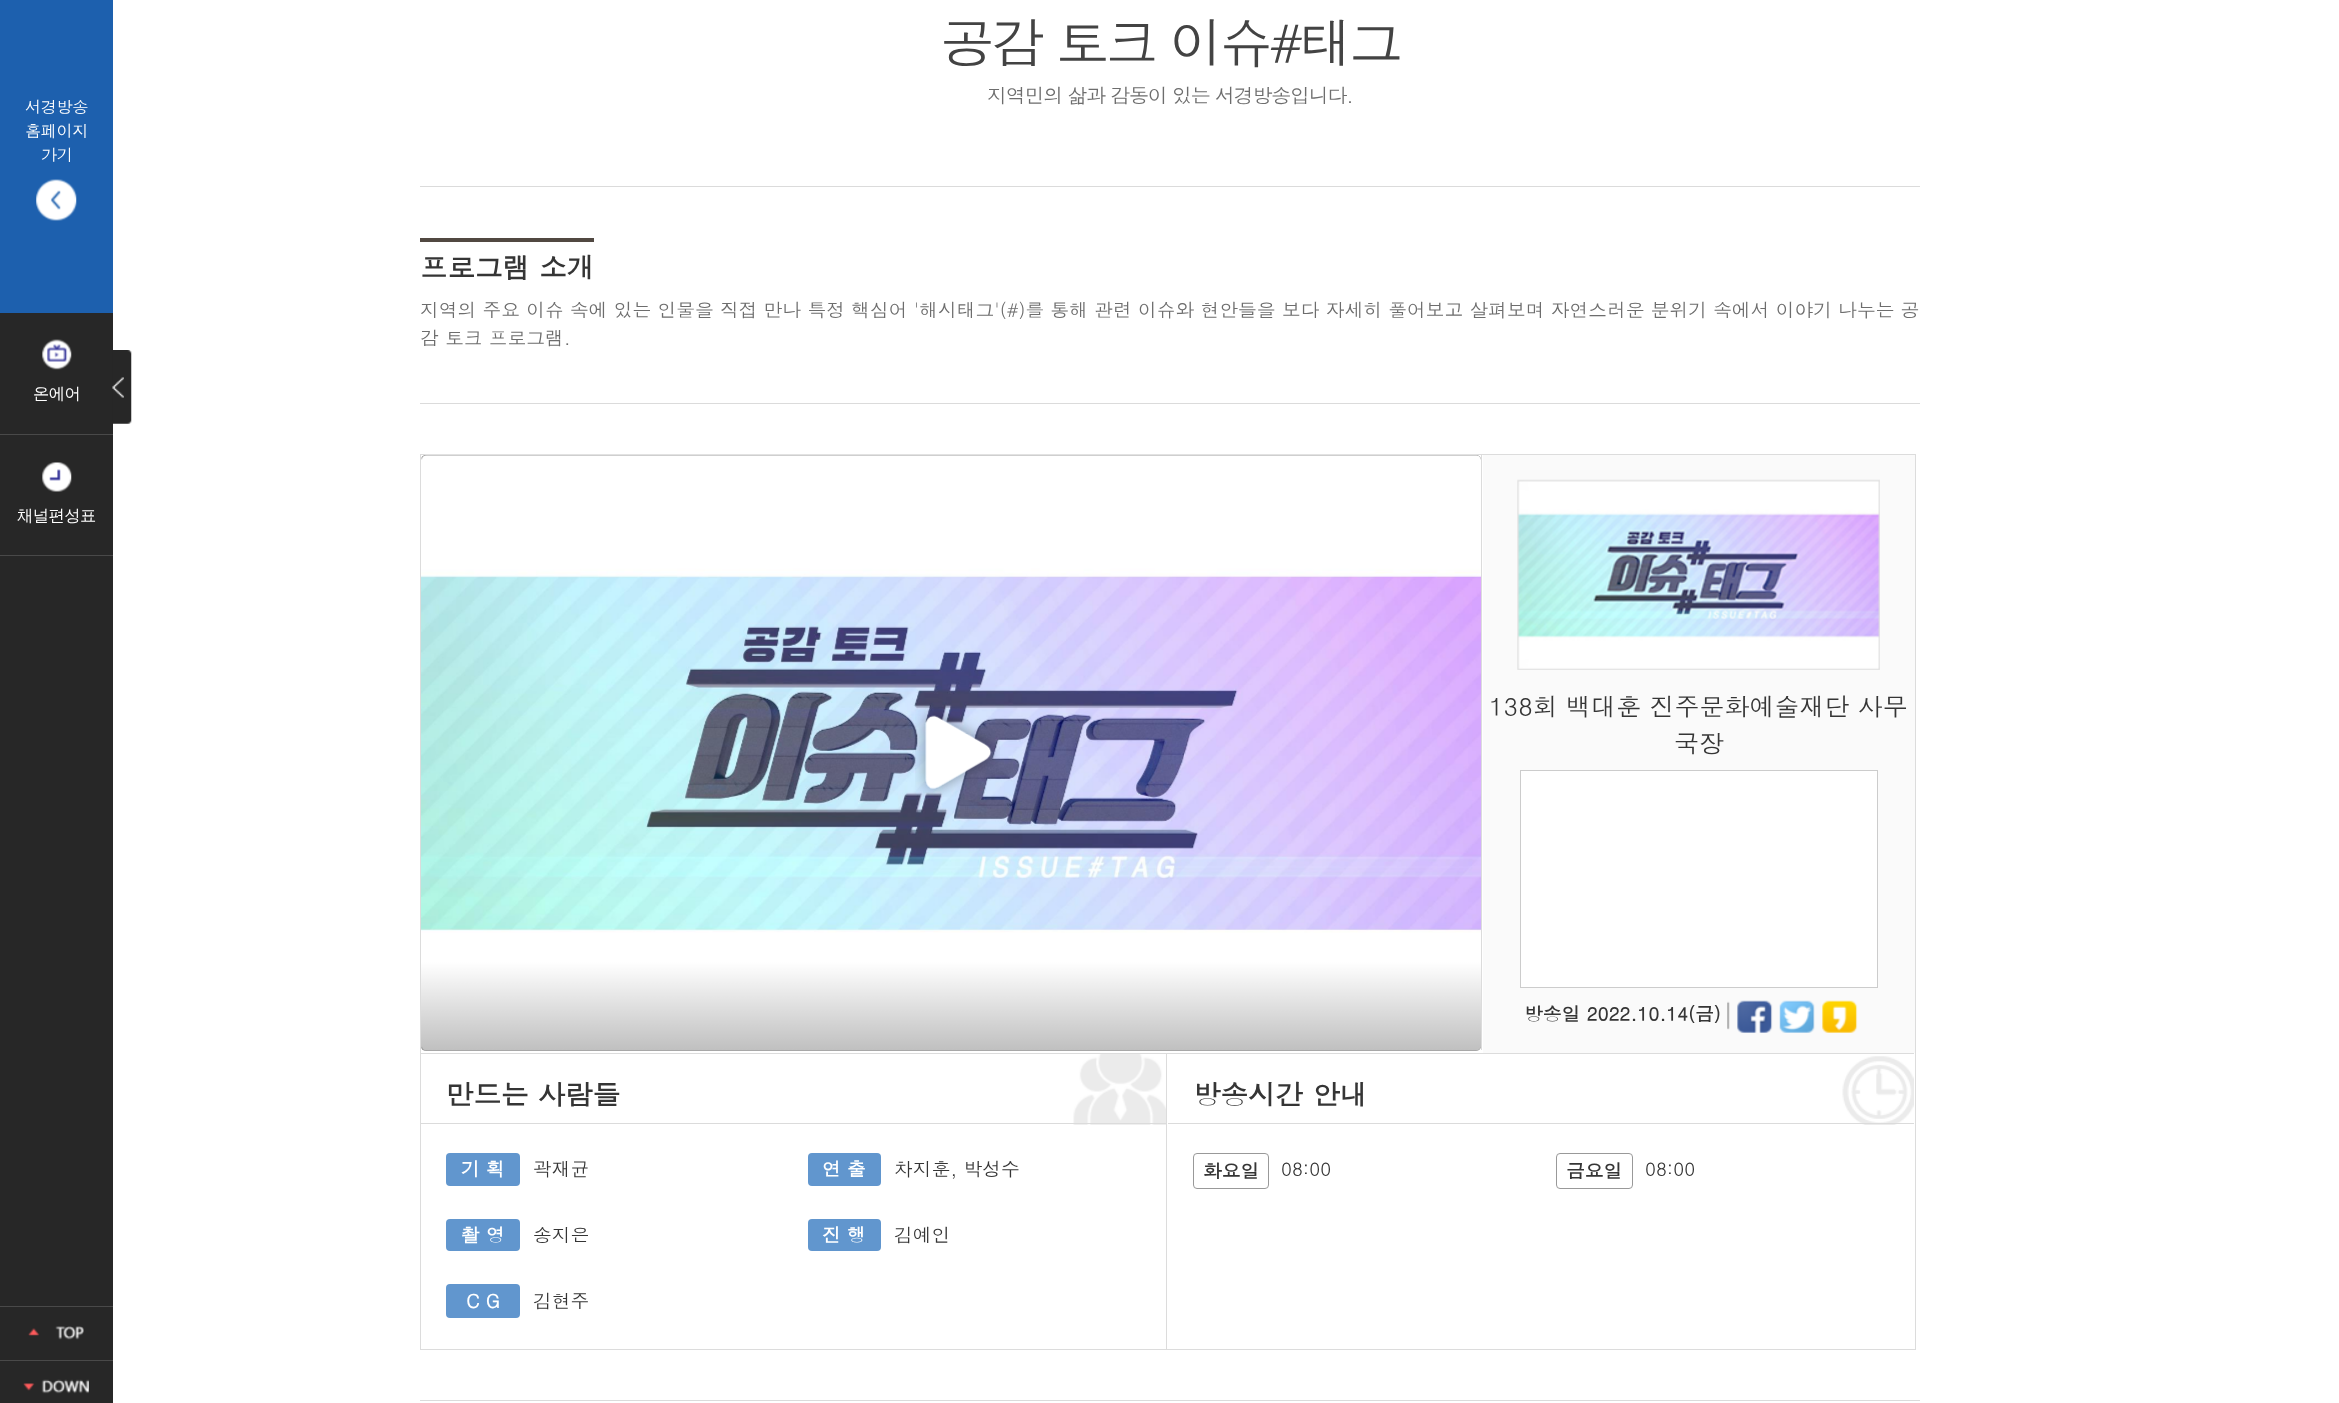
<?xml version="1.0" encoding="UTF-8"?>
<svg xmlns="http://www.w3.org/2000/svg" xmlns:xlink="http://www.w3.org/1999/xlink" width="2339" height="1403">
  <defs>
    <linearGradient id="g1" gradientUnits="userSpaceOnUse" x1="951" y1="1051" x2="951" y2="455"><stop offset="0" stop-color="#000000" stop-opacity="0.25" /><stop offset="0.15" stop-color="#000000" stop-opacity="0" /></linearGradient>
  </defs>
  <rect width="100%" height="100%" fill="#ffffff" />
  <rect y="313" width="113" height="1090" fill="#272727" />
  <rect width="113" height="313" fill="#1d60ae" />
  <image x="36" y="179" width="41" height="42" xlink:href="image1.png" />
  <rect y="434" width="113" height="1" fill="#494949" />
  <image x="42" y="339" width="30" height="31" xlink:href="image2.png" />
  <rect y="555" width="113" height="1" fill="#494949" />
  <image x="42" y="462" width="30" height="30" xlink:href="image3.png" />
  <image x="112" y="350" width="20" height="74" xlink:href="image4.png" />
  <rect y="1306" width="113" height="1" fill="#494949" />
  <image x="28" y="1326" width="56" height="14" xlink:href="image5.png" />
  <rect y="1360" width="113" height="1" fill="#494949" />
  <image x="23" y="1379" width="66" height="15" xlink:href="image6.png" />
  <rect x="420" y="186" width="1500" height="1" fill="#dbdbdb" />
  <rect x="420" y="238" width="174" height="4" fill="#514841" />
  <rect x="420" y="403" width="1500" height="1" fill="#dbdbdb" />
  <rect x="420.5" y="454.5" width="1495" height="895" fill="none" stroke="#dcdcdc" />
  <rect x="1481" y="455" width="1" height="595" fill="#dcdcdc" />
  <rect x="421" y="455" width="1060" height="596" rx="5" fill="#000000" />
  <image x="421" y="454" width="1060" height="597" xlink:href="image7.png" />
  <rect x="421" y="455" width="1060" height="596" rx="5" fill="url(#g1)" />
  <image x="915" y="707" width="85" height="90" xlink:href="image8.png" />
  <rect x="1483" y="455" width="432" height="598" fill="#fafafa" />
  <image x="1517" y="479" width="363" height="191" xlink:href="image9.png" />
  <rect x="1520.5" y="770.5" width="357" height="217" fill="#ffffff" stroke="#cccccc" />
  <image x="1727" y="1001" width="3" height="29" xlink:href="image10.png" />
  <image x="1737" y="1000" width="36" height="33" xlink:href="image11.png" />
  <image x="1779" y="1000" width="36" height="33" xlink:href="image12.png" />
  <image x="1822" y="1000" width="36" height="33" xlink:href="image13.png" />
  <image x="1073" y="1054" width="93" height="71" xlink:href="image14.png" />
  <rect x="421" y="1053" width="1493" height="1" fill="#dcdcdc" />
  <rect x="1166" y="1053" width="1" height="296" fill="#dcdcdc" />
  <rect x="421" y="1123" width="745" height="1" fill="#dbdbdb" />
  <rect x="446" y="1153" width="74" height="33" rx="4" fill="#6196ce" />
  <rect x="808" y="1153" width="73" height="33" rx="4" fill="#6196ce" />
  <rect x="446" y="1219" width="74" height="32" rx="4" fill="#6196ce" />
  <rect x="808" y="1219" width="73" height="32" rx="4" fill="#6196ce" />
  <rect x="446" y="1284" width="74" height="34" rx="4" fill="#6196ce" />
  <image x="1842" y="1056" width="72" height="69" xlink:href="image15.png" />
  <rect x="1168" y="1123" width="746" height="1" fill="#dbdbdb" />
  <rect x="1193.5" y="1153.5" width="75" height="35" rx="3.5" fill="none" stroke="#999999" />
  <rect x="1556.5" y="1153.5" width="76" height="35" rx="3.5" fill="none" stroke="#999999" />
  <rect x="420" y="1400" width="1500" height="1" fill="#dbdbdb" />
  <text x="25" y="113" style="font-family: Dotum; font-size: 16.25px; letter-spacing: -0.5px; fill: #ffffff">서경방송</text>
  <text x="25" y="137" style="font-family: Dotum; font-size: 16.25px; letter-spacing: -0.5px; fill: #ffffff">홈페이지</text>
  <text x="41" y="161" style="font-family: Dotum; font-size: 16.25px; letter-spacing: -0.5px; fill: #ffffff">가기</text>
  <text x="33" y="399" style="font-family: WenQuanYi Zen Hei; font-size: 16.25px; font-weight: 500; letter-spacing: -0.5px; fill: #ffffff">온에어</text>
  <text x="17" y="521" style="font-family: WenQuanYi Zen Hei; font-size: 16.25px; font-weight: 500; letter-spacing: -0.5px; fill: #ffffff">채널편성표</text>
  <text x="941" y="63" style="font-family: Dotum; font-size: 53.75px; letter-spacing: -3.75px; fill: #434343">공감 토크 이슈#태그</text>
  <text x="987" y="103" style="font-family: Dotum; font-size: 20px; letter-spacing: -1.25px; fill: #6d6d6d">지역민의 삶과 감동이 있는 서경방송입니다.</text>
  <text x="420" y="278" style="font-family: Dotum; font-size: 27.5px; font-weight: bold; fill: #353535">프로그램 소개</text>
  <text x="420" y="317" style="font-family: Dotum; font-size: 18.75px; fill: #6d6d6d">지역의 주요 이슈 속에 있는 인물을 직접 만나 특정 핵심어 '해시태그'(#)를 통해 관련 이슈와 현안들을 보다 자세히 풀어보고 살펴보며 자연스러운 분위기 속에서 이야기 나누는 공</text>
  <text x="420" y="345" style="font-family: Dotum; font-size: 18.75px; fill: #6d6d6d">감 토크 프로그램.</text>
  <text x="1489" y="716" style="font-family: Dotum; font-size: 25px; fill: #353535">138회 백대훈 진주문화예술재단 사무</text>
  <text x="1674" y="753" style="font-family: Dotum; font-size: 25px; fill: #353535">국장</text>
  <text x="1524" y="1021" style="font-family: Dotum; font-size: 18.75px; font-weight: bold; fill: #353535">방송일 2022.10.14(금)</text>
  <text x="446" y="1105" style="font-family: Dotum; font-size: 27.5px; font-weight: bold; fill: #353535">만드는 사람들</text>
  <text x="461" y="1176" style="font-family: Dotum; font-size: 18.75px; font-weight: bold; fill: #ffffff">기 획</text>
  <text x="533" y="1176" style="font-family: Dotum; font-size: 18.75px; fill: #353535">곽재균</text>
  <text x="822" y="1176" style="font-family: Dotum; font-size: 18.75px; font-weight: bold; fill: #ffffff">연 출</text>
  <text x="894" y="1176" style="font-family: Dotum; font-size: 18.75px; fill: #353535">차지훈, 박성수</text>
  <text x="461" y="1242" style="font-family: Dotum; font-size: 18.75px; font-weight: bold; fill: #ffffff">촬 영</text>
  <text x="533" y="1242" style="font-family: Dotum; font-size: 18.75px; fill: #353535">송지은</text>
  <text x="822" y="1242" style="font-family: Dotum; font-size: 18.75px; font-weight: bold; fill: #ffffff">진 행</text>
  <text x="894" y="1242" style="font-family: Dotum; font-size: 18.75px; fill: #353535">김예인</text>
  <text x="466" y="1308" style="font-family: Dotum; font-size: 18.75px; font-weight: bold; fill: #ffffff">C G</text>
  <text x="533" y="1308" style="font-family: Dotum; font-size: 18.75px; fill: #353535">김현주</text>
  <text x="1193" y="1105" style="font-family: Dotum; font-size: 27.5px; font-weight: bold; fill: #353535">방송시간 안내</text>
  <text x="1203" y="1178" style="font-family: Dotum; font-size: 18.75px; font-weight: bold; fill: #353535">화요일</text>
  <text x="1281" y="1176" style="font-family: Dotum; font-size: 18.75px; fill: #353535">08:00</text>
  <text x="1566" y="1178" style="font-family: Dotum; font-size: 18.75px; font-weight: bold; fill: #353535">금요일</text>
  <text x="1645" y="1176" style="font-family: Dotum; font-size: 18.75px; fill: #353535">08:00</text>
</svg>
